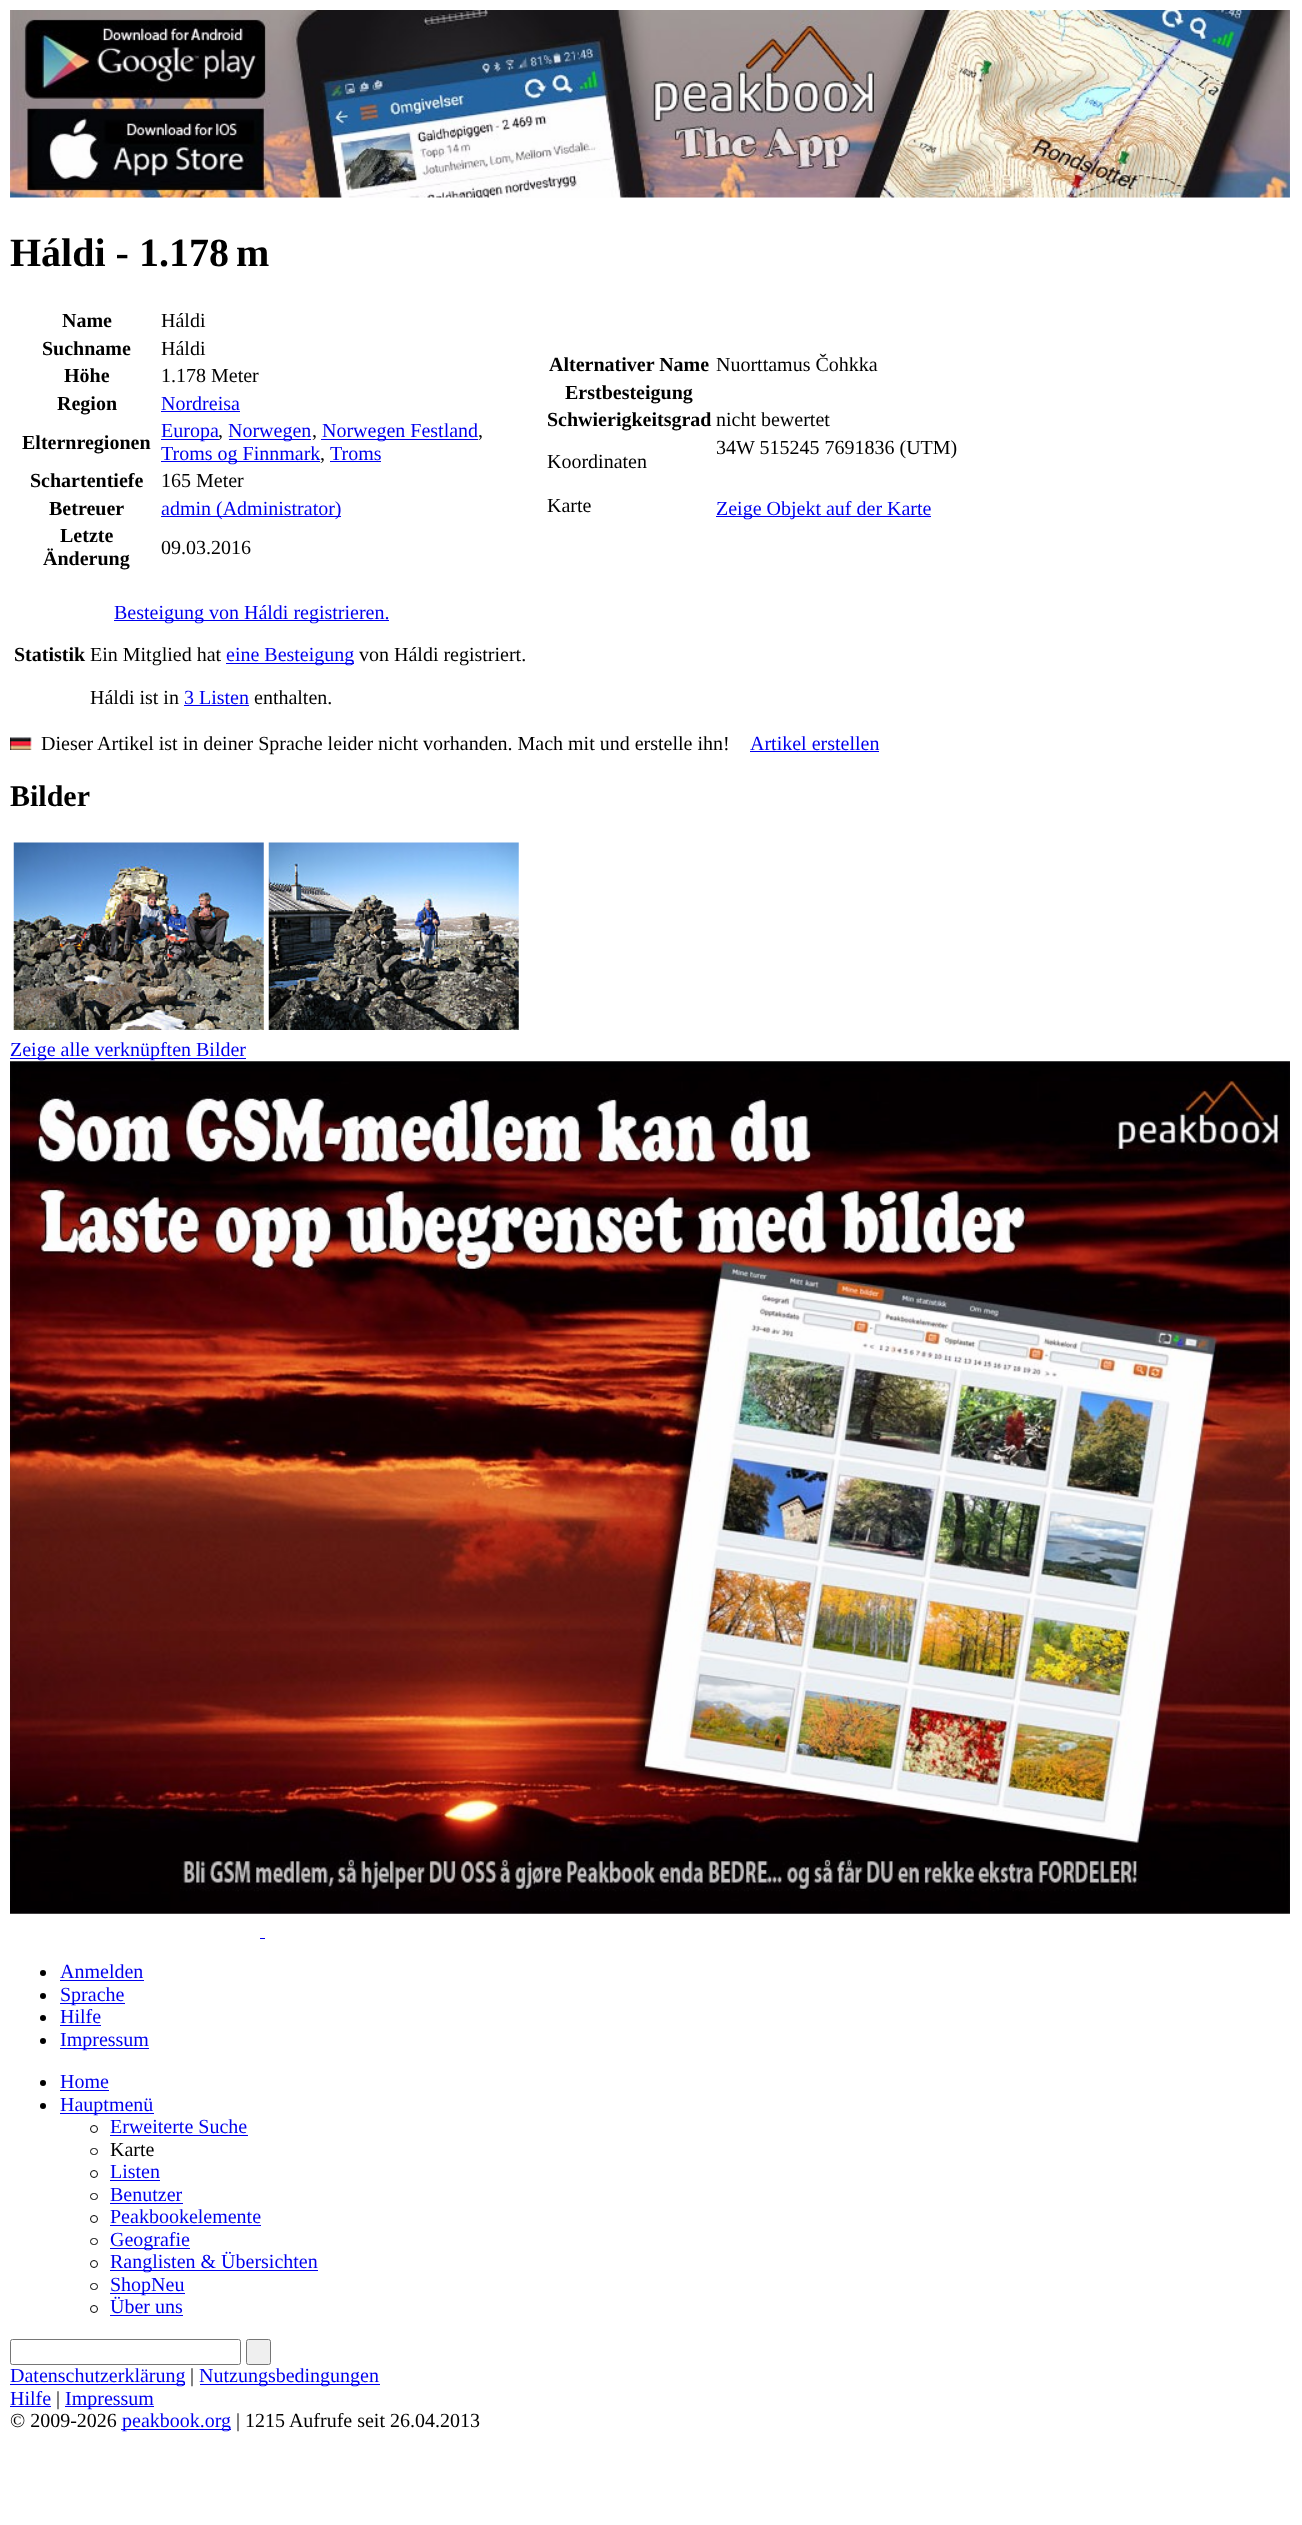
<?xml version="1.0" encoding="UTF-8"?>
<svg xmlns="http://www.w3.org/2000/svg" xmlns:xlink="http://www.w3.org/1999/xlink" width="1302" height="2525">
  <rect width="100%" height="100%" fill="#ffffff" />
  <image x="10" y="10" width="1280" height="188" xlink:href="image1.png" />
  <rect x="161" y="411" width="79" height="1" fill="#0000ee" />
  <rect x="161" y="439" width="58" height="1" fill="#0000ee" />
  <rect x="229" y="439" width="82" height="1" fill="#0000ee" />
  <rect x="321" y="439" width="157" height="1" fill="#0000ee" />
  <rect x="161" y="461" width="159" height="1" fill="#0000ee" />
  <rect x="330" y="461" width="51" height="1" fill="#0000ee" />
  <rect x="161" y="516" width="180" height="1" fill="#0000ee" />
  <rect x="716" y="516" width="215" height="1" fill="#0000ee" />
  <rect x="114" y="620" width="275" height="1" fill="#0000ee" />
  <rect x="226" y="663" width="128" height="1" fill="#0000ee" />
  <rect x="184" y="705" width="65" height="1" fill="#0000ee" />
  <image x="10" y="737" width="22" height="13" xlink:href="image2.png" />
  <rect x="750" y="751" width="129" height="1" fill="#0000ee" />
  <image x="13" y="842" width="251" height="188" xlink:href="image3.png" />
  <image x="268" y="842" width="251" height="188" xlink:href="image4.png" />
  <rect x="10" y="1058" width="236" height="1" fill="#0000ee" />
  <image x="10" y="1061" width="1280" height="853" xlink:href="image5.png" />
  <rect x="260" y="1938" width="5" height="1" fill="#0000ee" />
  <circle cx="43" cy="1973" r="3" fill="#000000" />
  <rect x="60" y="1980" width="84" height="1" fill="#0000ee" />
  <circle cx="43" cy="1996" r="3" fill="#000000" />
  <rect x="60" y="2003" width="65" height="1" fill="#0000ee" />
  <circle cx="43" cy="2018" r="3" fill="#000000" />
  <rect x="60" y="2025" width="41" height="1" fill="#0000ee" />
  <circle cx="43" cy="2041" r="3" fill="#000000" />
  <rect x="60" y="2048" width="89" height="1" fill="#0000ee" />
  <circle cx="43" cy="2083" r="3" fill="#000000" />
  <rect x="60" y="2090" width="49" height="1" fill="#0000ee" />
  <circle cx="43" cy="2106" r="3" fill="#000000" />
  <rect x="60" y="2113" width="94" height="1" fill="#0000ee" />
  <circle cx="94" cy="2129" r="3.5" fill="none" stroke="#000000" />
  <rect x="110" y="2135" width="138" height="1" fill="#0000ee" />
  <rect x="90.5" y="2148.5" width="7" height="6" rx="3" fill="none" stroke="#000000" />
  <circle cx="94" cy="2174" r="3.5" fill="none" stroke="#000000" />
  <rect x="110" y="2180" width="50" height="1" fill="#0000ee" />
  <rect x="90.5" y="2193.5" width="7" height="6" rx="3" fill="none" stroke="#000000" />
  <rect x="110" y="2203" width="73" height="1" fill="#0000ee" />
  <circle cx="94" cy="2219" r="3.5" fill="none" stroke="#000000" />
  <rect x="110" y="2225" width="151" height="1" fill="#0000ee" />
  <rect x="90.5" y="2238.5" width="7" height="6" rx="3" fill="none" stroke="#000000" />
  <rect x="110" y="2248" width="80" height="1" fill="#0000ee" />
  <circle cx="94" cy="2264" r="3.5" fill="none" stroke="#000000" />
  <rect x="110" y="2270" width="208" height="1" fill="#0000ee" />
  <rect x="90.5" y="2283.5" width="7" height="6" rx="3" fill="none" stroke="#000000" />
  <rect x="110" y="2293" width="75" height="1" fill="#0000ee" />
  <circle cx="94" cy="2309" r="3.5" fill="none" stroke="#000000" />
  <rect x="110" y="2315" width="73" height="1" fill="#0000ee" />
  <rect x="10.5" y="2339.5" width="230" height="25" rx="2" fill="none" stroke="#767676" />
  <rect x="246.5" y="2339.5" width="24" height="25" rx="2" fill="#efefef" stroke="#767676" />
  <rect x="10" y="2384" width="175" height="1" fill="#0000ee" />
  <rect x="200" y="2384" width="180" height="1" fill="#0000ee" />
  <rect x="10" y="2406" width="41" height="1" fill="#0000ee" />
  <rect x="65" y="2406" width="89" height="1" fill="#0000ee" />
  <rect x="121" y="2429" width="110" height="1" fill="#0000ee" />
  <text x="10" y="266" style="font-family: Liberation Serif; font-size: 40px; font-weight: bold; fill: #000000">Háldi - 1.178</text>
  <text x="236" y="266" style="font-family: Liberation Serif; font-size: 40px; font-weight: bold; fill: #000000">m</text>
  <text x="62" y="327" style="font-family: Liberation Serif; font-size: 20px; font-weight: bold; fill: #000000">Name</text>
  <text x="161" y="327" style="font-family: Liberation Serif; font-size: 20px; fill: #000000">Háldi</text>
  <text x="42" y="355" style="font-family: Liberation Serif; font-size: 20px; font-weight: bold; fill: #000000">Suchname</text>
  <text x="161" y="355" style="font-family: Liberation Serif; font-size: 20px; fill: #000000">Háldi</text>
  <text x="64" y="382" style="font-family: Liberation Serif; font-size: 20px; font-weight: bold; fill: #000000">Höhe</text>
  <text x="161" y="382" style="font-family: Liberation Serif; font-size: 20px; fill: #000000">1.178 Meter</text>
  <text x="57" y="410" style="font-family: Liberation Serif; font-size: 20px; font-weight: bold; fill: #000000">Region</text>
  <text x="161" y="410" style="font-family: Liberation Serif; font-size: 20px; fill: #0000ee">Nordreisa</text>
  <text x="22" y="449" style="font-family: Liberation Serif; font-size: 20px; font-weight: bold; fill: #000000">Elternregionen</text>
  <text x="161" y="437" style="font-family: Liberation Serif; font-size: 20px; fill: #0000ee">Europa</text>
  <text x="218" y="437" style="font-family: Liberation Serif; font-size: 20px; fill: #000000">,</text>
  <text x="228" y="437" style="font-family: Liberation Serif; font-size: 20px; fill: #0000ee">Norwegen</text>
  <text x="312" y="437" style="font-family: Liberation Serif; font-size: 20px; fill: #000000">,</text>
  <text x="322" y="437" style="font-family: Liberation Serif; font-size: 20px; fill: #0000ee">Norwegen Festland</text>
  <text x="478" y="437" style="font-family: Liberation Serif; font-size: 20px; fill: #000000">,</text>
  <text x="161" y="460" style="font-family: Liberation Serif; font-size: 20px; fill: #0000ee">Troms og Finnmark</text>
  <text x="320" y="460" style="font-family: Liberation Serif; font-size: 20px; fill: #000000">,</text>
  <text x="330" y="460" style="font-family: Liberation Serif; font-size: 20px; fill: #0000ee">Troms</text>
  <text x="30" y="487" style="font-family: Liberation Serif; font-size: 20px; font-weight: bold; fill: #000000">Schartentiefe</text>
  <text x="161" y="487" style="font-family: Liberation Serif; font-size: 20px; fill: #000000">165 Meter</text>
  <text x="49" y="515" style="font-family: Liberation Serif; font-size: 20px; font-weight: bold; fill: #000000">Betreuer</text>
  <text x="161" y="515" style="font-family: Liberation Serif; font-size: 20px; fill: #0000ee">admin (Administrator)</text>
  <text x="60" y="542" style="font-family: Liberation Serif; font-size: 20px; font-weight: bold; fill: #000000">Letzte</text>
  <text x="43" y="565" style="font-family: Liberation Serif; font-size: 20px; font-weight: bold; fill: #000000">Änderung</text>
  <text x="161" y="554" style="font-family: Liberation Serif; font-size: 20px; fill: #000000">09.03.2016</text>
  <text x="549" y="371" style="font-family: Liberation Serif; font-size: 20px; font-weight: bold; fill: #000000">Alternativer Name</text>
  <text x="716" y="371" style="font-family: Liberation Serif; font-size: 20px; fill: #000000">Nuorttamus Čohkka</text>
  <text x="565" y="399" style="font-family: Liberation Serif; font-size: 20px; font-weight: bold; fill: #000000">Erstbesteigung</text>
  <text x="547" y="426" style="font-family: Liberation Serif; font-size: 20px; font-weight: bold; fill: #000000">Schwierigkeitsgrad</text>
  <text x="716" y="426" style="font-family: Liberation Serif; font-size: 20px; fill: #000000">nicht bewertet</text>
  <text x="716" y="454" style="font-family: Liberation Serif; font-size: 20px; fill: #000000">34W 515245 7691836 (UTM)</text>
  <text x="547" y="468" style="font-family: Liberation Serif; font-size: 20px; fill: #000000">Koordinaten</text>
  <text x="547" y="512" style="font-family: Liberation Serif; font-size: 20px; fill: #000000">Karte</text>
  <text x="716" y="515" style="font-family: Liberation Serif; font-size: 20px; fill: #0000ee">Zeige Objekt auf der Karte</text>
  <text x="14" y="661" style="font-family: Liberation Serif; font-size: 20px; font-weight: bold; fill: #000000">Statistik</text>
  <text x="114" y="619" style="font-family: Liberation Serif; font-size: 20px; fill: #0000ee">Besteigung von Háldi registrieren.</text>
  <text x="90" y="661" style="font-family: Liberation Serif; font-size: 20px; fill: #000000">Ein Mitglied hat</text>
  <text x="226" y="661" style="font-family: Liberation Serif; font-size: 20px; fill: #0000ee">eine Besteigung</text>
  <text x="359" y="661" style="font-family: Liberation Serif; font-size: 20px; fill: #000000">von Háldi registriert.</text>
  <text x="90" y="704" style="font-family: Liberation Serif; font-size: 20px; fill: #000000">Háldi ist in</text>
  <text x="184" y="704" style="font-family: Liberation Serif; font-size: 20px; fill: #0000ee">3 Listen</text>
  <text x="254" y="704" style="font-family: Liberation Serif; font-size: 20px; fill: #000000">enthalten.</text>
  <text x="41" y="750" style="font-family: Liberation Serif; font-size: 20px; fill: #000000">Dieser Artikel ist in deiner Sprache leider nicht vorhanden. Mach mit und erstelle ihn!</text>
  <text x="750" y="750" style="font-family: Liberation Serif; font-size: 20px; fill: #0000ee">Artikel erstellen</text>
  <text x="10" y="806" style="font-family: Liberation Serif; font-size: 30px; font-weight: bold; fill: #000000">Bilder</text>
  <text x="10" y="1056" style="font-family: Liberation Serif; font-size: 20px; fill: #0000ee">Zeige alle verknüpften Bilder</text>
  <text x="60" y="1978" style="font-family: Liberation Serif; font-size: 20px; fill: #0000ee">Anmelden</text>
  <text x="60" y="2001" style="font-family: Liberation Serif; font-size: 20px; fill: #0000ee">Sprache</text>
  <text x="60" y="2023" style="font-family: Liberation Serif; font-size: 20px; fill: #0000ee">Hilfe</text>
  <text x="60" y="2046" style="font-family: Liberation Serif; font-size: 20px; fill: #0000ee">Impressum</text>
  <text x="60" y="2088" style="font-family: Liberation Serif; font-size: 20px; fill: #0000ee">Home</text>
  <text x="60" y="2111" style="font-family: Liberation Serif; font-size: 20px; fill: #0000ee">Hauptmenü</text>
  <text x="110" y="2133" style="font-family: Liberation Serif; font-size: 20px; fill: #0000ee">Erweiterte Suche</text>
  <text x="110" y="2156" style="font-family: Liberation Serif; font-size: 20px; fill: #000000">Karte</text>
  <text x="110" y="2178" style="font-family: Liberation Serif; font-size: 20px; fill: #0000ee">Listen</text>
  <text x="110" y="2201" style="font-family: Liberation Serif; font-size: 20px; fill: #0000ee">Benutzer</text>
  <text x="110" y="2223" style="font-family: Liberation Serif; font-size: 20px; fill: #0000ee">Peakbookelemente</text>
  <text x="110" y="2246" style="font-family: Liberation Serif; font-size: 20px; fill: #0000ee">Geografie</text>
  <text x="110" y="2268" style="font-family: Liberation Serif; font-size: 20px; fill: #0000ee">Ranglisten &amp; Übersichten</text>
  <text x="110" y="2291" style="font-family: Liberation Serif; font-size: 20px; fill: #0000ee">ShopNeu</text>
  <text x="110" y="2313" style="font-family: Liberation Serif; font-size: 20px; fill: #0000ee">Über uns</text>
  <text x="10" y="2382" style="font-family: Liberation Serif; font-size: 20px; fill: #0000ee">Datenschutzerklärung</text>
  <text x="190" y="2382" style="font-family: Liberation Serif; font-size: 20px; fill: #000000">|</text>
  <text x="199" y="2382" style="font-family: Liberation Serif; font-size: 20px; fill: #0000ee">Nutzungsbedingungen</text>
  <text x="10" y="2405" style="font-family: Liberation Serif; font-size: 20px; fill: #0000ee">Hilfe</text>
  <text x="56" y="2405" style="font-family: Liberation Serif; font-size: 20px; fill: #000000">|</text>
  <text x="65" y="2405" style="font-family: Liberation Serif; font-size: 20px; fill: #0000ee">Impressum</text>
  <text x="10" y="2427" style="font-family: Liberation Serif; font-size: 20px; fill: #000000">© 2009-2026</text>
  <text x="122" y="2427" style="font-family: Liberation Serif; font-size: 20px; fill: #0000ee">peakbook.org</text>
  <text x="236" y="2427" style="font-family: Liberation Serif; font-size: 20px; fill: #000000">| 1215 Aufrufe seit 26.04.2013</text>
</svg>
